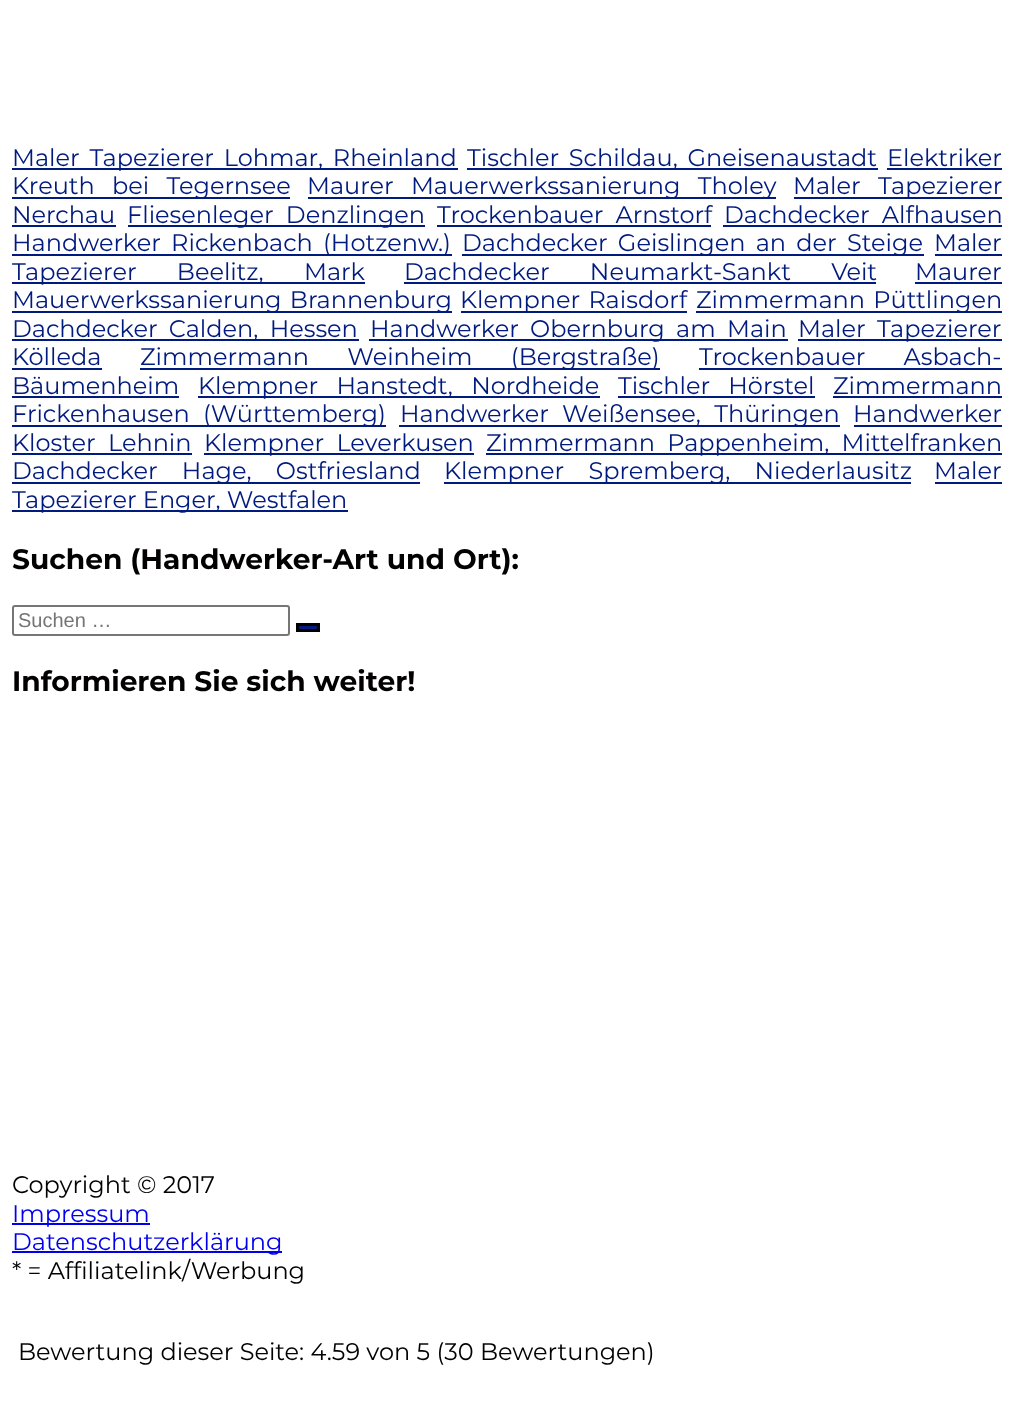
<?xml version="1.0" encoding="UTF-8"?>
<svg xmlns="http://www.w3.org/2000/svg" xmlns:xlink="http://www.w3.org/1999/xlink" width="1013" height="1405">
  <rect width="100%" height="100%" fill="#ffffff" />
  <rect x="12" y="168" width="446" height="2" fill="#011a7e" />
  <rect x="467" y="168" width="411" height="2" fill="#011a7e" />
  <rect x="887" y="168" width="115" height="2" fill="#011a7e" />
  <rect x="12" y="197" width="278" height="2" fill="#011a7e" />
  <rect x="308" y="197" width="468" height="2" fill="#011a7e" />
  <rect x="794" y="197" width="208" height="2" fill="#011a7e" />
  <rect x="12" y="225" width="104" height="2" fill="#011a7e" />
  <rect x="128" y="225" width="297" height="2" fill="#011a7e" />
  <rect x="437" y="225" width="274" height="2" fill="#011a7e" />
  <rect x="723" y="225" width="279" height="2" fill="#011a7e" />
  <rect x="12" y="254" width="440" height="2" fill="#011a7e" />
  <rect x="462" y="254" width="462" height="2" fill="#011a7e" />
  <rect x="935" y="254" width="67" height="2" fill="#011a7e" />
  <rect x="12" y="282" width="353" height="2" fill="#011a7e" />
  <rect x="404" y="282" width="472" height="2" fill="#011a7e" />
  <rect x="915" y="282" width="87" height="2" fill="#011a7e" />
  <rect x="12" y="311" width="440" height="2" fill="#011a7e" />
  <rect x="461" y="311" width="226" height="2" fill="#011a7e" />
  <rect x="696" y="311" width="306" height="2" fill="#011a7e" />
  <rect x="12" y="339" width="347" height="2" fill="#011a7e" />
  <rect x="369" y="339" width="419" height="2" fill="#011a7e" />
  <rect x="798" y="339" width="204" height="2" fill="#011a7e" />
  <rect x="12" y="368" width="90" height="2" fill="#011a7e" />
  <rect x="140" y="368" width="520" height="2" fill="#011a7e" />
  <rect x="699" y="368" width="303" height="2" fill="#011a7e" />
  <rect x="12" y="396" width="167" height="2" fill="#011a7e" />
  <rect x="198" y="396" width="402" height="2" fill="#011a7e" />
  <rect x="618" y="396" width="197" height="2" fill="#011a7e" />
  <rect x="833" y="396" width="169" height="2" fill="#011a7e" />
  <rect x="12" y="425" width="374" height="2" fill="#011a7e" />
  <rect x="399" y="425" width="441" height="2" fill="#011a7e" />
  <rect x="854" y="425" width="148" height="2" fill="#011a7e" />
  <rect x="12" y="453" width="180" height="2" fill="#011a7e" />
  <rect x="204" y="453" width="270" height="2" fill="#011a7e" />
  <rect x="486" y="453" width="516" height="2" fill="#011a7e" />
  <rect x="12" y="482" width="408" height="2" fill="#011a7e" />
  <rect x="444" y="482" width="467" height="2" fill="#011a7e" />
  <rect x="935" y="482" width="67" height="2" fill="#011a7e" />
  <rect x="12" y="510" width="336" height="2" fill="#011a7e" />
  <rect x="13" y="606" width="276" height="29" rx="2" fill="none" stroke="#767676" stroke-width="2" />
  <rect x="297.5" y="624.5" width="21" height="6" fill="#011a7e" stroke="#000000" stroke-width="3" />
  <rect x="12" y="1223" width="138" height="2" fill="#0000ee" />
  <rect x="12" y="1251" width="270" height="2" fill="#0000ee" />
  <text x="12" y="166" word-spacing="3.5" style="font-family: Montserrat; font-size: 24px; fill: #011a7e">Maler Tapezierer Lohmar, Rheinland</text>
  <text x="467" y="166" word-spacing="3.5" style="font-family: Montserrat; font-size: 24px; fill: #011a7e">Tischler Schildau, Gneisenaustadt</text>
  <text x="887" y="166" style="font-family: Montserrat; font-size: 24px; fill: #011a7e">Elektriker</text>
  <text x="12" y="194" word-spacing="11" style="font-family: Montserrat; font-size: 24px; fill: #011a7e">Kreuth bei Tegernsee</text>
  <text x="307" y="194" word-spacing="11" style="font-family: Montserrat; font-size: 24px; fill: #011a7e">Maurer Mauerwerkssanierung Tholey</text>
  <text x="793" y="194" word-spacing="11" style="font-family: Montserrat; font-size: 24px; fill: #011a7e">Maler Tapezierer</text>
  <text x="12" y="223" style="font-family: Montserrat; font-size: 24px; fill: #011a7e">Nerchau</text>
  <text x="127" y="223" word-spacing="6" style="font-family: Montserrat; font-size: 24px; fill: #011a7e">Fliesenleger Denzlingen</text>
  <text x="437" y="223" word-spacing="6" style="font-family: Montserrat; font-size: 24px; fill: #011a7e">Trockenbauer Arnstorf</text>
  <text x="724" y="223" word-spacing="6" style="font-family: Montserrat; font-size: 24px; fill: #011a7e">Dachdecker Alfhausen</text>
  <text x="12" y="251" word-spacing="4" style="font-family: Montserrat; font-size: 24px; fill: #011a7e">Handwerker Rickenbach (Hotzenw.)</text>
  <text x="462" y="251" word-spacing="4" style="font-family: Montserrat; font-size: 24px; fill: #011a7e">Dachdecker Geislingen an der Steige</text>
  <text x="934" y="251" style="font-family: Montserrat; font-size: 24px; fill: #011a7e">Maler</text>
  <text x="12" y="280" word-spacing="34" style="font-family: Montserrat; font-size: 24px; fill: #011a7e">Tapezierer Beelitz, Mark</text>
  <text x="404" y="280" word-spacing="34" style="font-family: Montserrat; font-size: 24px; fill: #011a7e">Dachdecker Neumarkt-Sankt Veit</text>
  <text x="915" y="280" style="font-family: Montserrat; font-size: 24px; fill: #011a7e">Maurer</text>
  <text x="12" y="308" word-spacing="2" style="font-family: Montserrat; font-size: 24px; fill: #011a7e">Mauerwerkssanierung Brannenburg</text>
  <text x="460" y="308" word-spacing="2" style="font-family: Montserrat; font-size: 24px; fill: #011a7e">Klempner Raisdorf</text>
  <text x="696" y="308" word-spacing="2" style="font-family: Montserrat; font-size: 24px; fill: #011a7e">Zimmermann Püttlingen</text>
  <text x="12" y="337" word-spacing="5" style="font-family: Montserrat; font-size: 24px; fill: #011a7e">Dachdecker Calden, Hessen</text>
  <text x="370" y="337" word-spacing="5" style="font-family: Montserrat; font-size: 24px; fill: #011a7e">Handwerker Obernburg am Main</text>
  <text x="798" y="337" word-spacing="5" style="font-family: Montserrat; font-size: 24px; fill: #011a7e">Maler Tapezierer</text>
  <text x="12" y="365" style="font-family: Montserrat; font-size: 24px; fill: #011a7e">Kölleda</text>
  <text x="140" y="365" word-spacing="32" style="font-family: Montserrat; font-size: 24px; fill: #011a7e">Zimmermann Weinheim (Bergstraße)</text>
  <text x="699" y="365" word-spacing="32" style="font-family: Montserrat; font-size: 24px; fill: #011a7e">Trockenbauer Asbach-</text>
  <text x="12" y="394" style="font-family: Montserrat; font-size: 24px; fill: #011a7e">Bäumenheim</text>
  <text x="198" y="394" word-spacing="12" style="font-family: Montserrat; font-size: 24px; fill: #011a7e">Klempner Hanstedt, Nordheide</text>
  <text x="618" y="394" word-spacing="12" style="font-family: Montserrat; font-size: 24px; fill: #011a7e">Tischler Hörstel</text>
  <text x="833" y="394" style="font-family: Montserrat; font-size: 24px; fill: #011a7e">Zimmermann</text>
  <text x="12" y="422" word-spacing="7" style="font-family: Montserrat; font-size: 24px; fill: #011a7e">Frickenhausen (Württemberg)</text>
  <text x="400" y="422" word-spacing="7" style="font-family: Montserrat; font-size: 24px; fill: #011a7e">Handwerker Weißensee, Thüringen</text>
  <text x="853" y="422" style="font-family: Montserrat; font-size: 24px; fill: #011a7e">Handwerker</text>
  <text x="12" y="451" word-spacing="6" style="font-family: Montserrat; font-size: 24px; fill: #011a7e">Kloster Lehnin</text>
  <text x="204" y="451" word-spacing="6" style="font-family: Montserrat; font-size: 24px; fill: #011a7e">Klempner Leverkusen</text>
  <text x="486" y="451" word-spacing="6" style="font-family: Montserrat; font-size: 24px; fill: #011a7e">Zimmermann Pappenheim, Mittelfranken</text>
  <text x="12" y="479" word-spacing="18" style="font-family: Montserrat; font-size: 24px; fill: #011a7e">Dachdecker Hage, Ostfriesland</text>
  <text x="444" y="479" word-spacing="18" style="font-family: Montserrat; font-size: 24px; fill: #011a7e">Klempner Spremberg, Niederlausitz</text>
  <text x="934" y="479" style="font-family: Montserrat; font-size: 24px; fill: #011a7e">Maler</text>
  <text x="12" y="508" style="font-family: Montserrat; font-size: 24px; fill: #011a7e">Tapezierer Enger, Westfalen</text>
  <text x="12" y="569" style="font-family: Montserrat; font-size: 28.1px; font-weight: bold; fill: #020000">Suchen (Handwerker-Art und Ort):</text>
  <text x="18" y="627" style="font-family: Liberation Sans; font-size: 20px; fill: #757575">Suchen …</text>
  <text x="12" y="691" style="font-family: Montserrat; font-size: 28.1px; font-weight: bold; fill: #020000">Informieren Sie sich weiter!</text>
  <text x="12" y="1193" style="font-family: Montserrat; font-size: 24px; fill: #020000">Copyright © 2017</text>
  <text x="12" y="1222" style="font-family: Montserrat; font-size: 24px; fill: #0000ee">Impressum</text>
  <text x="12" y="1250" style="font-family: Montserrat; font-size: 24px; fill: #0000ee">Datenschutzerklärung</text>
  <text x="12" y="1279" style="font-family: Montserrat; font-size: 24px; fill: #020000">* = Affiliatelink/Werbung</text>
  <text x="18" y="1360" style="font-family: Montserrat; font-size: 24px; fill: #020000">Bewertung dieser Seite: 4.59 von 5 (30 Bewertungen)</text>
</svg>
